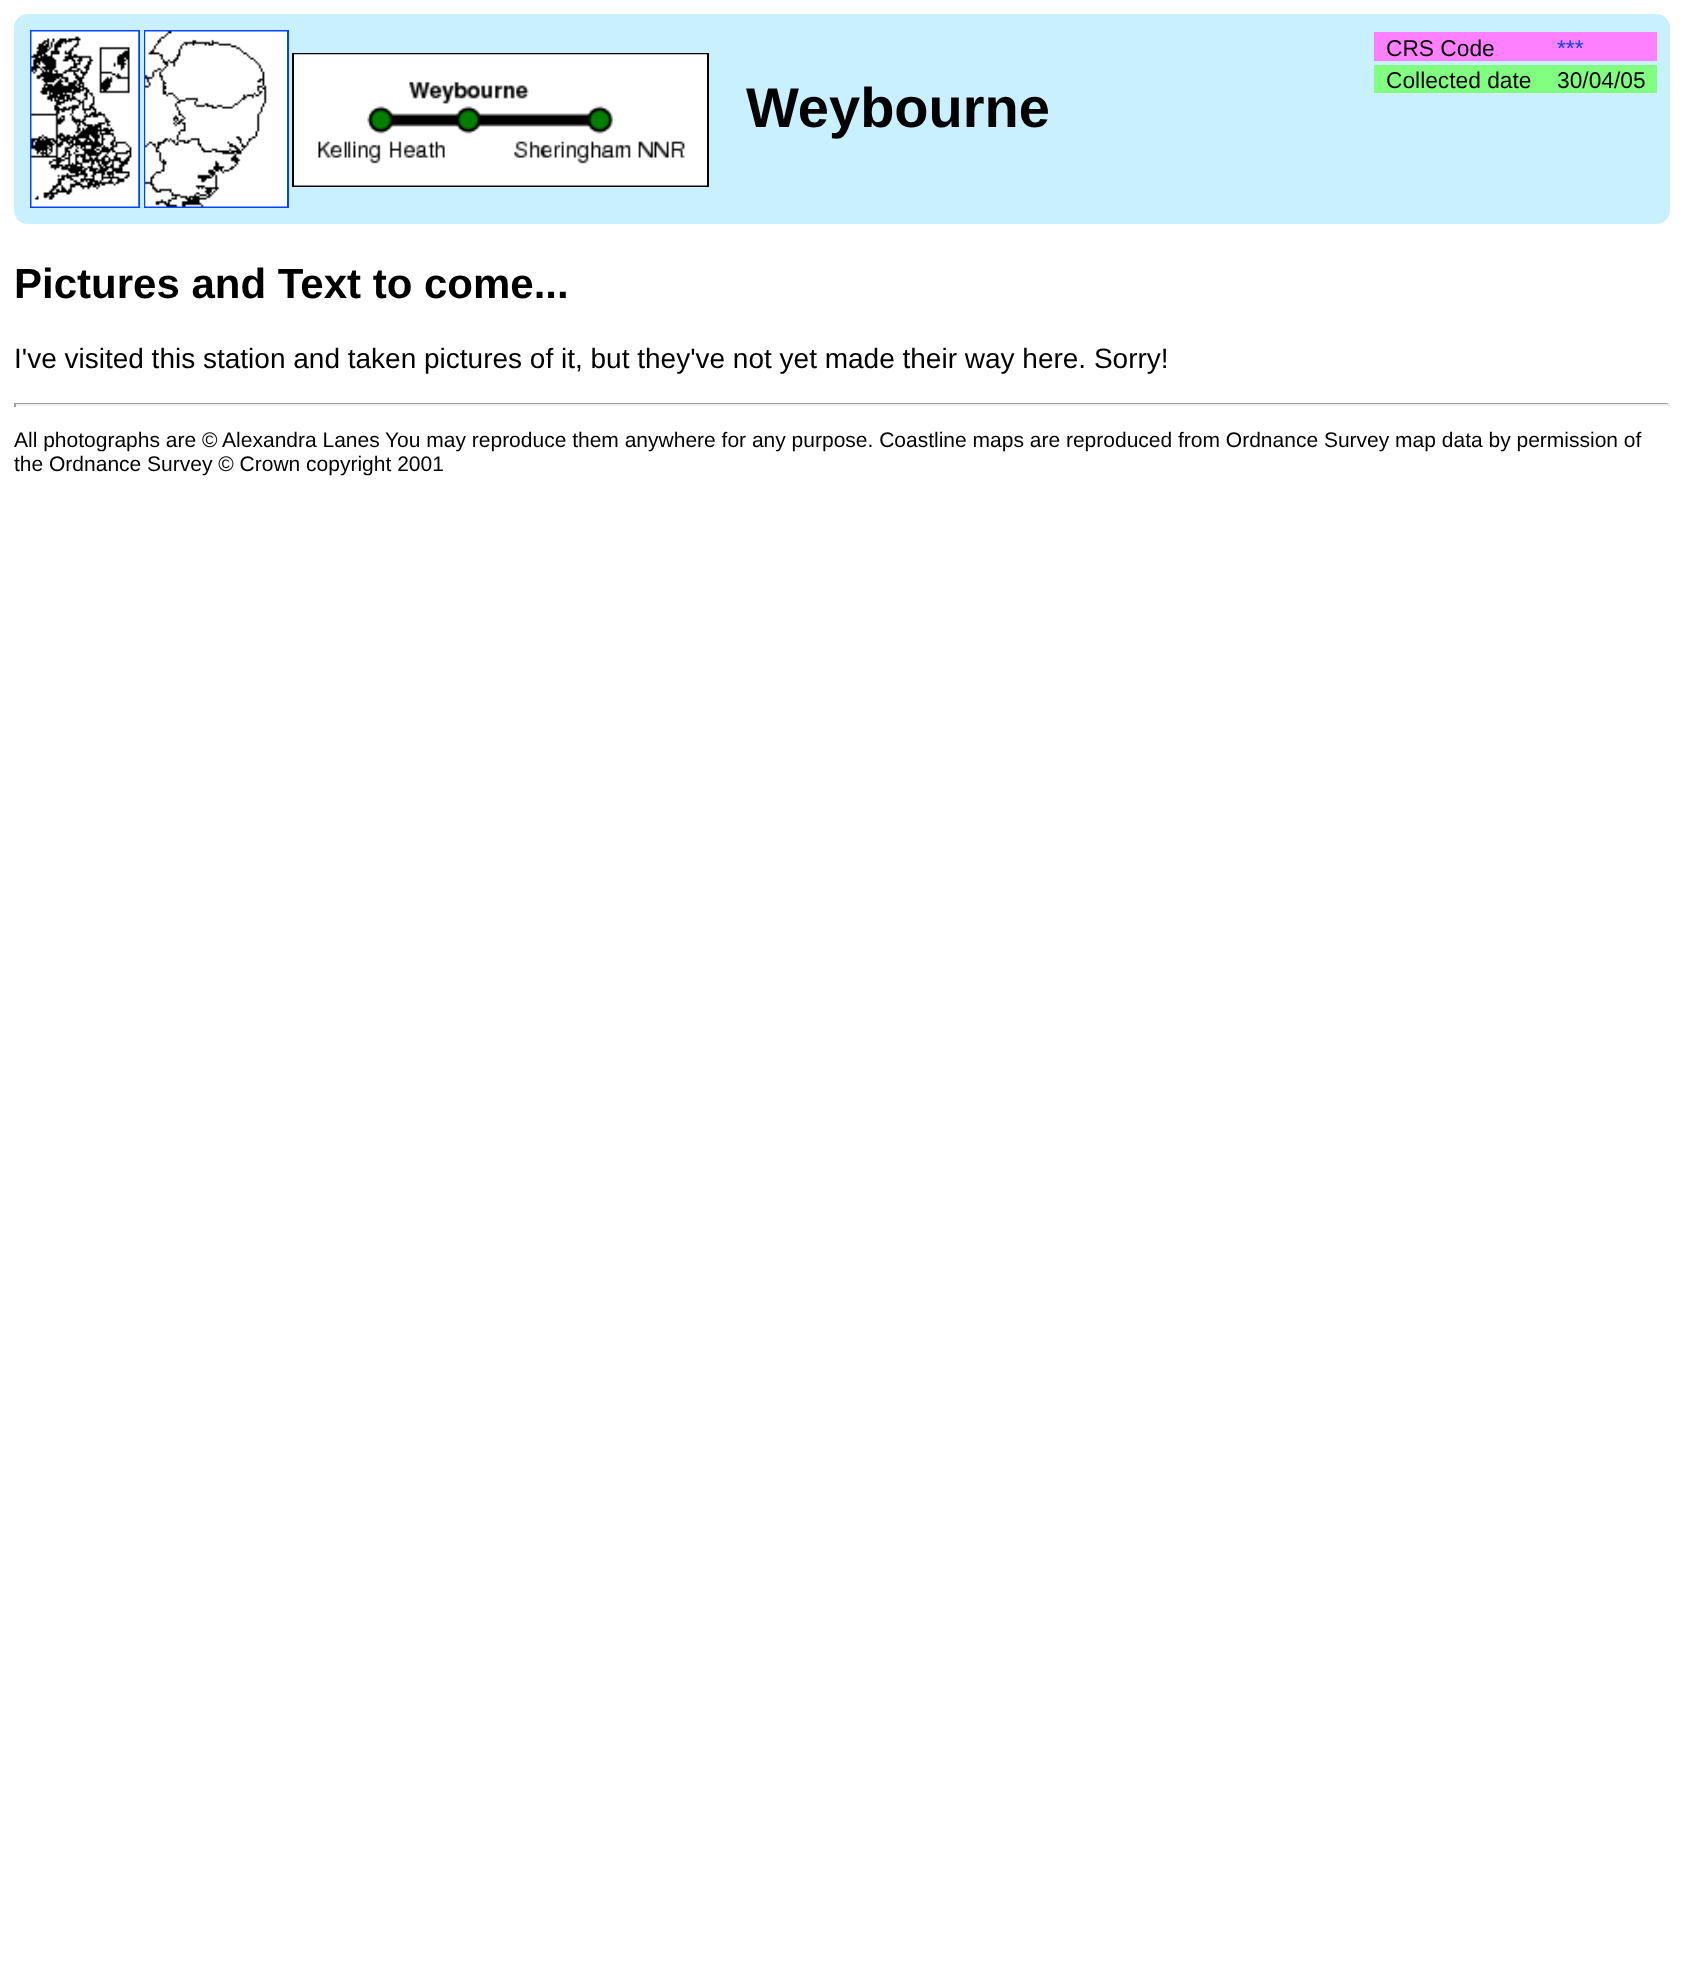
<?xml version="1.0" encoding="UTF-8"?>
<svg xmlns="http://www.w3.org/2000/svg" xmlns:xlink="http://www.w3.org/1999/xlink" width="1682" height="1970">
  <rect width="100%" height="100%" fill="#ffffff" />
  <rect x="14" y="14" width="1656" height="210" rx="14" fill="#c8f0ff" />
  <rect x="31" y="31" width="108" height="176" fill="none" stroke="#0044ff" stroke-width="2" />
  <rect x="145" y="31" width="143" height="176" fill="none" stroke="#0044ff" stroke-width="2" />
  <image x="31" y="31" width="108" height="176" xlink:href="image1.png" />
  <image x="145" y="31" width="142" height="176" xlink:href="image2.png" />
  <rect x="293" y="54" width="415" height="132" fill="none" stroke="#000000" stroke-width="2" />
  <rect x="1374" y="32" width="283" height="29" fill="#ff80ff" />
  <rect x="1374" y="65" width="283" height="28" fill="#80ff80" />
  <image x="294" y="54" width="413" height="132" xlink:href="image3.png" />
  <rect x="14" y="403" width="1656" height="1" fill="#9f9f9f" />
  <rect x="1668" y="403" width="2" height="4" fill="#eeeeee" />
  <rect x="14" y="404" width="1656" height="2" fill="#eeeeee" />
  <rect x="14" y="403" width="2" height="4" fill="#9f9f9f" />
  <text x="1386" y="56" style="font-family: Liberation Sans; font-size: 22.75px; fill: #000000">CRS Code</text>
  <text x="1557" y="56" style="font-family: Liberation Sans; font-size: 22.75px; fill: #0044ff">***</text>
  <text x="1386" y="88" style="font-family: Liberation Sans; font-size: 22.75px; fill: #000000">Collected date</text>
  <text x="1557" y="88" style="font-family: Liberation Sans; font-size: 22.75px; fill: #000000">30/04/05</text>
  <text x="746" y="127" style="font-family: Liberation Sans; font-size: 56px; font-weight: bold; fill: #000000">Weybourne</text>
  <text x="14" y="298" style="font-family: Liberation Sans; font-size: 42px; font-weight: bold; fill: #000000">Pictures and Text to come...</text>
  <text x="14" y="368" style="font-family: Liberation Sans; font-size: 28px; fill: #000000">I've visited this station and taken pictures of it, but they've not yet made their way here. Sorry!</text>
  <text x="14" y="447" style="font-family: Liberation Sans; font-size: 21px; fill: #000000">All photographs are © Alexandra Lanes</text>
  <text x="385" y="447" style="font-family: Liberation Sans; font-size: 21px; fill: #000000">You may reproduce them anywhere for any purpose. Coastline maps are reproduced from Ordnance Survey map data by permission of</text>
  <text x="14" y="471" style="font-family: Liberation Sans; font-size: 21px; fill: #000000">the Ordnance Survey © Crown copyright 2001</text>
</svg>
